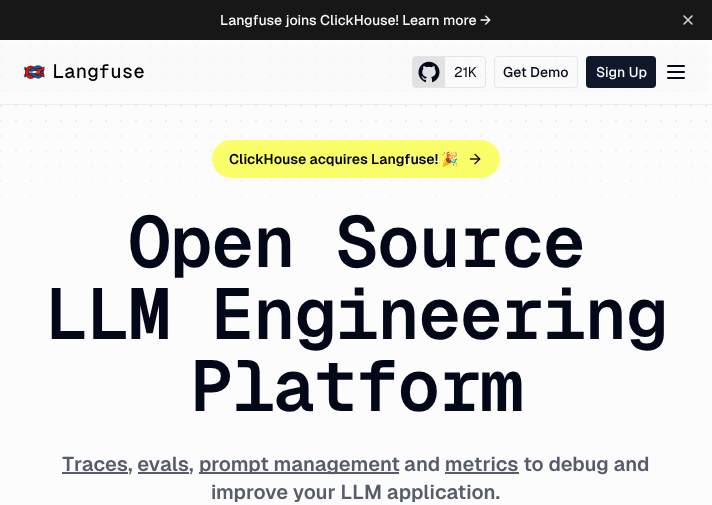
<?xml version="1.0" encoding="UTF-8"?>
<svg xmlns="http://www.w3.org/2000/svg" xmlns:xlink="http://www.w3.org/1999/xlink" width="712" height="505">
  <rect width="100%" height="100%" fill="#fcfcfc" />
  <rect width="712" height="40" fill="#171717" />
  <image x="683" y="15" width="10" height="10" xlink:href="image1.png" />
  <image x="0" y="45" width="707" height="166" xlink:href="image5.png" />
  <rect y="104" width="712" height="1" fill="#ededed" />
  <rect y="45" width="707" height="47" fill="#fafafa" fill-opacity="0.7" />
  <image x="24" y="64" width="120" height="17" xlink:href="image2.png" />
  <rect x="412.5" y="56.5" width="73" height="31" rx="3.5" fill="none" stroke="#e3e4e6" />
  <path d="M 416 57 h 29 v 30 h -29 c -1.5 0 -3 -1.5 -3 -3 v -24 c 0 -1.5 1.5 -3 3 -3 z" fill="#0f172a" fill-opacity="0.1" />
  <image x="418" y="61" width="22" height="22" xlink:href="image3.png" />
  <rect x="494.5" y="56.5" width="83" height="31" rx="3.5" fill="none" stroke="#e1e7ef" />
  <rect x="586" y="56" width="70" height="32" rx="4" fill="#0f172a" />
  <image x="667" y="65" width="18" height="14" xlink:href="image4.png" />
  <rect x="212.5" y="140.5" width="287" height="37" rx="18.5" fill="#faff69" stroke="#faff69" />
  <image x="469" y="153" width="12" height="12" xlink:href="image6.png" />
  <rect x="62" y="472" width="66" height="2" fill="#565c69" />
  <rect x="199" y="472" width="200" height="2" fill="#565c69" />
  <rect x="138" y="472" width="51" height="2" fill="#565c69" />
  <rect x="445" y="472" width="74" height="2" fill="#565c69" />
  <text x="220" y="25" style="font-family: Geist; font-size: 14px; font-weight: 500; fill: #f8fafc">Langfuse joins ClickHouse! Learn more →</text>
  <text x="454" y="77" style="font-family: Geist; font-size: 14px; fill: #020817">21K</text>
  <text x="503" y="77" style="font-family: Geist; font-size: 14px; font-weight: 500; fill: #020817">Get Demo</text>
  <text x="596" y="77" style="font-family: Geist; font-size: 14px; font-weight: 500; fill: #f8fafc">Sign Up</text>
  <text x="229" y="164" style="font-family: Geist; font-size: 14px; font-weight: 600; fill: #000000">ClickHouse acquires Langfuse!</text>
  <text x="441" y="164" style="font-family: Noto Color Emoji; font-size: 14px; font-weight: bold; fill: #000000">🎉</text>
  <text x="128" y="267" style="font-family: Geist Mono; font-size: 72px; font-weight: bold; letter-spacing: -1.75px; fill: #020817">Open Source</text>
  <text x="45" y="339" style="font-family: Geist Mono; font-size: 72px; font-weight: bold; letter-spacing: -1.75px; fill: #020817">LLM Engineering</text>
  <text x="190" y="411" style="font-family: Geist Mono; font-size: 72px; font-weight: bold; letter-spacing: -1.75px; fill: #020817">Platform</text>
  <text x="62" y="471" style="font-family: Geist; font-size: 20px; font-weight: 600; fill: #565c69">Traces, evals,</text>
  <text x="199" y="471" style="font-family: Geist; font-size: 20px; font-weight: 600; fill: #565c69">prompt management</text>
  <text x="404" y="471" style="font-family: Geist; font-size: 20px; font-weight: 600; fill: #565c69">and metrics to debug and</text>
  <text x="211" y="499" style="font-family: Geist; font-size: 20px; font-weight: 600; fill: #565c69">improve your LLM application.</text>
</svg>
